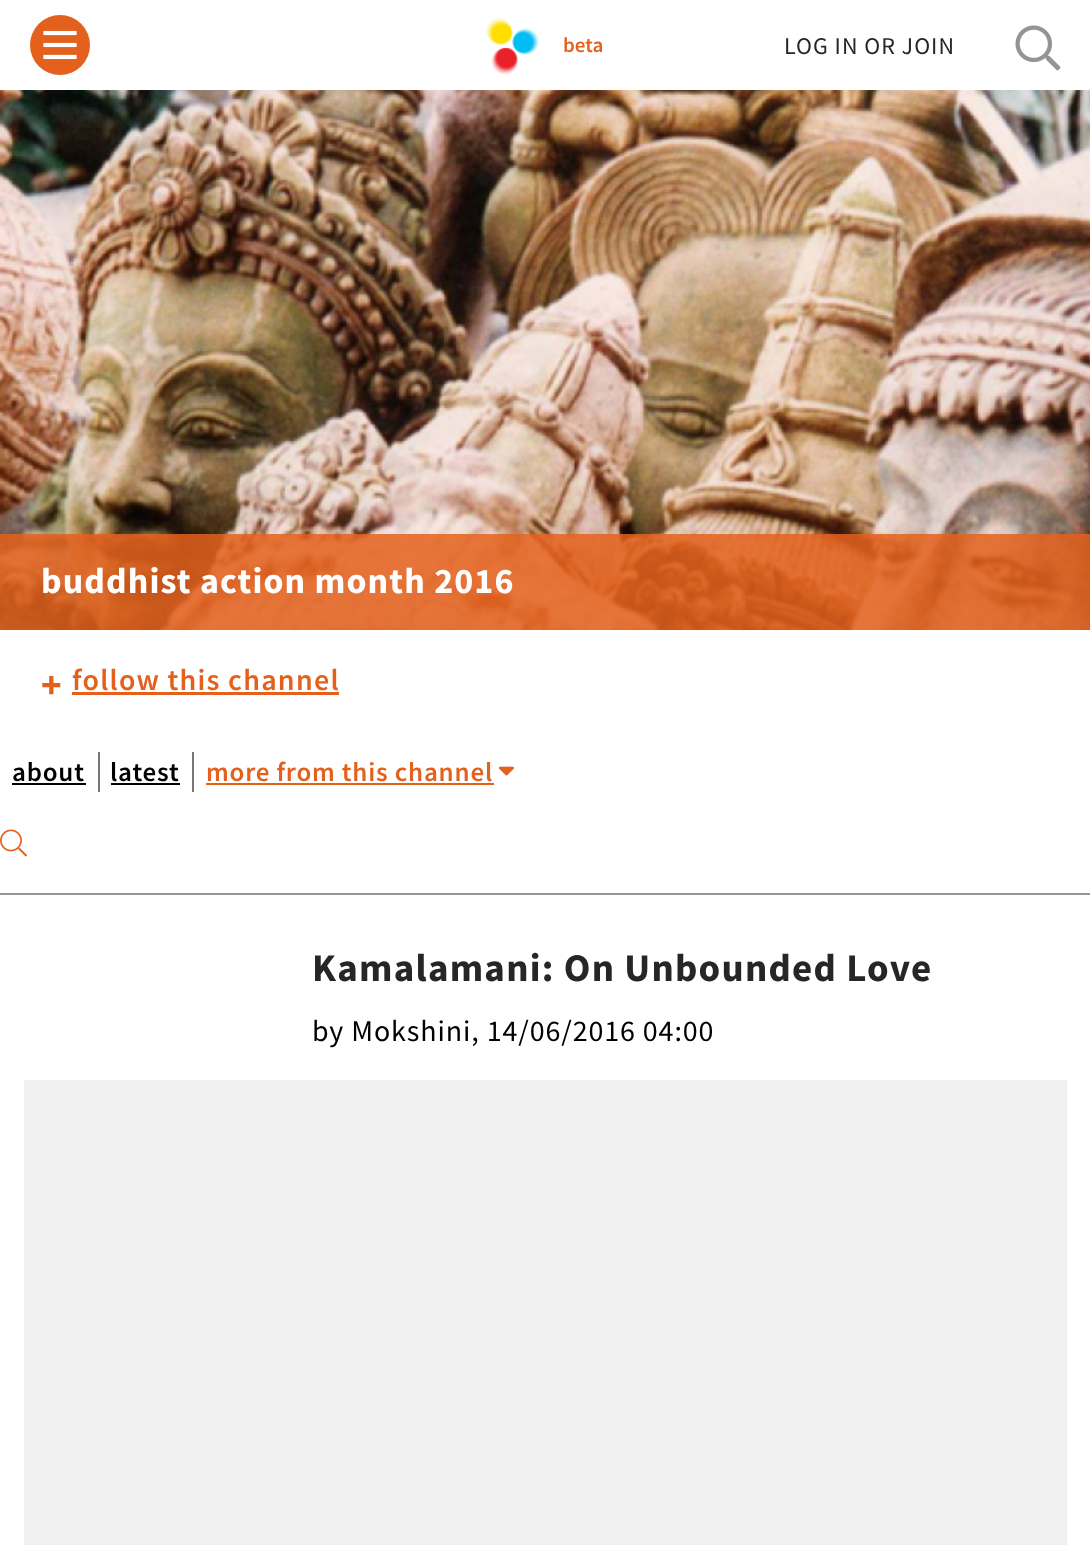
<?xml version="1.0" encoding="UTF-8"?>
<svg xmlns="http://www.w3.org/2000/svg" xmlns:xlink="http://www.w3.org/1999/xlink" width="1090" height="1545">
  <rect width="100%" height="100%" fill="#ffffff" />
  <circle cx="60" cy="45" r="30" fill="#e4611d" />
  <image x="43" y="30" width="34" height="30" xlink:href="image1.png" />
  <image x="485" y="17" width="55" height="58" xlink:href="image2.png" />
  <image x="1015" y="25" width="46" height="46" xlink:href="image3.png" />
  <image x="0" y="90" width="1090" height="540" xlink:href="image4.png" />
  <rect y="534" width="1090" height="96" fill="#e4611d" fill-opacity="0.85" />
  <rect x="72" y="692" width="267" height="3" fill="#e4611d" />
  <rect y="893" width="1090" height="2" fill="#979797" />
  <rect x="98" y="752" width="2" height="40" fill="#757575" />
  <rect x="12" y="783" width="74" height="2" fill="#000000" />
  <rect x="192" y="752" width="2" height="40" fill="#757575" />
  <rect x="111" y="783" width="69" height="2" fill="#000000" />
  <rect x="206" y="783" width="288" height="2" fill="#e4611d" />
  <image x="498" y="766" width="16" height="10" xlink:href="image5.png" />
  <image x="0" y="829" width="27" height="28" xlink:href="image6.png" />
  <rect x="24" y="1080" width="1043" height="465" fill="#f0f0f0" />
  <text x="563" y="52" style="font-family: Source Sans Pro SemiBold; font-size: 21px; font-weight: 600; fill: #e4611d">beta</text>
  <text x="784" y="54" style="font-family: Source Sans Pro; font-size: 24px; letter-spacing: 1px; fill: #262626">LOG IN OR JOIN</text>
  <text x="41" y="593" style="font-family: Source Sans Pro; font-size: 36px; font-weight: bold; letter-spacing: 1.1px; fill: #ffffff">buddhist action month 2016</text>
  <text x="41" y="698" style="font-family: Source Sans Pro; font-size: 39px; font-weight: bold; letter-spacing: 2px; fill: #e4611d">+</text>
  <text x="72" y="690" style="font-family: Source Sans Pro SemiBold; font-size: 30px; font-weight: 600; letter-spacing: 1.25px; fill: #e4611d">follow this channel</text>
  <text x="12" y="781" style="font-family: Source Sans Pro SemiBold; font-size: 27px; font-weight: 600; letter-spacing: 0.8px; fill: #000000">about</text>
  <text x="110" y="781" style="font-family: Source Sans Pro SemiBold; font-size: 27px; font-weight: 600; letter-spacing: 0.8px; fill: #000000">latest</text>
  <text x="206" y="781" style="font-family: Source Sans Pro SemiBold; font-size: 27px; font-weight: 600; letter-spacing: 0.8px; fill: #e4611d">more from this channel</text>
  <text x="312" y="981" style="font-family: Source Sans Pro; font-size: 39px; font-weight: bold; letter-spacing: 1.25px; fill: #262626">Kamalamani: On Unbounded Love</text>
  <text x="312" y="1041" style="font-family: Source Sans Pro; font-size: 30px; letter-spacing: 0.9px; fill: #000000">by Mokshini, 14/06/2016 04:00</text>
</svg>
